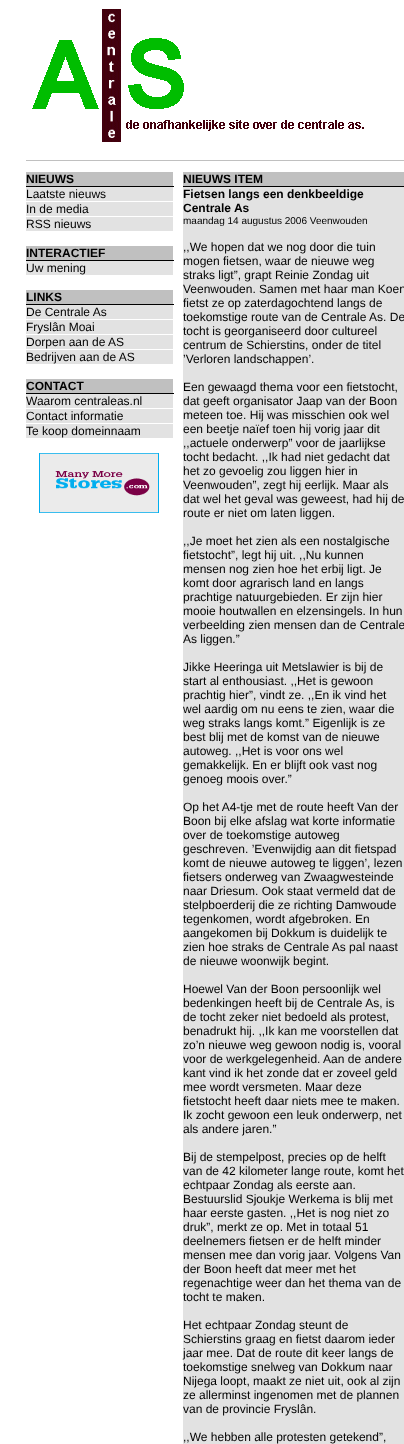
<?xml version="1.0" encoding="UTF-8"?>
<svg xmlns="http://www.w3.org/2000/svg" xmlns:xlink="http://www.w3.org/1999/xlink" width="404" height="1444">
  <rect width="100%" height="100%" fill="#ffffff" />
  <image x="32" y="9" width="332" height="133" xlink:href="image1.png" />
  <rect x="26" y="160" width="378" height="1" fill="#c0c0c0" />
  <rect x="26" y="172" width="147" height="14" fill="#c0c0c0" />
  <rect x="26" y="186" width="148" height="1" fill="#000000" />
  <rect x="26" y="187" width="147" height="14" fill="#e2e2e2" />
  <rect x="26" y="202" width="147" height="14" fill="#e2e2e2" />
  <rect x="26" y="217" width="147" height="14" fill="#e2e2e2" />
  <rect x="26" y="246" width="147" height="14" fill="#c0c0c0" />
  <rect x="26" y="260" width="148" height="1" fill="#000000" />
  <rect x="26" y="261" width="147" height="14" fill="#e2e2e2" />
  <rect x="26" y="290" width="147" height="14" fill="#c0c0c0" />
  <rect x="26" y="304" width="148" height="1" fill="#000000" />
  <rect x="26" y="305" width="147" height="14" fill="#e2e2e2" />
  <rect x="26" y="320" width="147" height="14" fill="#e2e2e2" />
  <rect x="26" y="335" width="147" height="14" fill="#e2e2e2" />
  <rect x="26" y="350" width="147" height="14" fill="#e2e2e2" />
  <rect x="26" y="379" width="147" height="14" fill="#c0c0c0" />
  <rect x="26" y="393" width="148" height="1" fill="#000000" />
  <rect x="26" y="394" width="147" height="14" fill="#e2e2e2" />
  <rect x="26" y="409" width="147" height="14" fill="#e2e2e2" />
  <rect x="26" y="424" width="147" height="14" fill="#e2e2e2" />
  <image x="39" y="453" width="120" height="60" xlink:href="image2.png" />
  <rect x="183" y="172" width="221" height="14" fill="#c0c0c0" />
  <rect x="183" y="186" width="221" height="1" fill="#000000" />
  <rect x="183" y="187" width="221" height="1257" fill="#e2e2e2" />
  <text x="26" y="183" style="font-family: Liberation Sans; font-size: 12px; font-weight: bold; fill: #000000">NIEUWS</text>
  <text x="26" y="198" style="font-family: Liberation Sans; font-size: 12px; fill: #000000">Laatste nieuws</text>
  <text x="26" y="213" style="font-family: Liberation Sans; font-size: 12px; fill: #000000">In de media</text>
  <text x="26" y="228" style="font-family: Liberation Sans; font-size: 12px; fill: #000000">RSS nieuws</text>
  <text x="26" y="257" style="font-family: Liberation Sans; font-size: 12px; font-weight: bold; fill: #000000">INTERACTIEF</text>
  <text x="26" y="272" style="font-family: Liberation Sans; font-size: 12px; fill: #000000">Uw mening</text>
  <text x="26" y="301" style="font-family: Liberation Sans; font-size: 12px; font-weight: bold; fill: #000000">LINKS</text>
  <text x="26" y="316" style="font-family: Liberation Sans; font-size: 12px; fill: #000000">De Centrale As</text>
  <text x="26" y="331" style="font-family: Liberation Sans; font-size: 12px; fill: #000000">Fryslân Moai</text>
  <text x="26" y="346" style="font-family: Liberation Sans; font-size: 12px; fill: #000000">Dorpen aan de AS</text>
  <text x="26" y="361" style="font-family: Liberation Sans; font-size: 12px; fill: #000000">Bedrijven aan de AS</text>
  <text x="26" y="390" style="font-family: Liberation Sans; font-size: 12px; font-weight: bold; fill: #000000">CONTACT</text>
  <text x="26" y="405" style="font-family: Liberation Sans; font-size: 12px; fill: #000000">Waarom centraleas.nl</text>
  <text x="26" y="420" style="font-family: Liberation Sans; font-size: 12px; fill: #000000">Contact informatie</text>
  <text x="26" y="435" style="font-family: Liberation Sans; font-size: 12px; fill: #000000">Te koop domeinnaam</text>
  <text x="183" y="183" style="font-family: Liberation Sans; font-size: 12px; font-weight: bold; fill: #000000">NIEUWS ITEM</text>
  <text x="183" y="198" style="font-family: Liberation Sans; font-size: 12px; font-weight: bold; fill: #000000">Fietsen langs een denkbeeldige</text>
  <text x="183" y="212" style="font-family: Liberation Sans; font-size: 12px; font-weight: bold; fill: #000000">Centrale As</text>
  <text x="183" y="224" style="font-family: Liberation Sans; font-size: 10px; fill: #000000">maandag 14 augustus 2006 Veenwouden</text>
  <text x="183" y="251" style="font-family: Liberation Sans; font-size: 12px; fill: #000000">,,We hopen dat we nog door die tuin</text>
  <text x="183" y="265" style="font-family: Liberation Sans; font-size: 12px; fill: #000000">mogen fietsen, waar de nieuwe weg</text>
  <text x="183" y="279" style="font-family: Liberation Sans; font-size: 12px; fill: #000000">straks ligt”, grapt Reinie Zondag uit</text>
  <text x="183" y="293" style="font-family: Liberation Sans; font-size: 12px; fill: #000000">Veenwouden. Samen met haar man Koen</text>
  <text x="183" y="307" style="font-family: Liberation Sans; font-size: 12px; fill: #000000">fietst ze op zaterdagochtend langs de</text>
  <text x="183" y="321" style="font-family: Liberation Sans; font-size: 12px; fill: #000000">toekomstige route van de Centrale As. De</text>
  <text x="183" y="335" style="font-family: Liberation Sans; font-size: 12px; fill: #000000">tocht is georganiseerd door cultureel</text>
  <text x="183" y="349" style="font-family: Liberation Sans; font-size: 12px; fill: #000000">centrum de Schierstins, onder de titel</text>
  <text x="183" y="363" style="font-family: Liberation Sans; font-size: 12px; fill: #000000">’Verloren landschappen’.</text>
  <text x="183" y="391" style="font-family: Liberation Sans; font-size: 12px; fill: #000000">Een gewaagd thema voor een fietstocht,</text>
  <text x="183" y="405" style="font-family: Liberation Sans; font-size: 12px; fill: #000000">dat geeft organisator Jaap van der Boon</text>
  <text x="183" y="419" style="font-family: Liberation Sans; font-size: 12px; fill: #000000">meteen toe. Hij was misschien ook wel</text>
  <text x="183" y="433" style="font-family: Liberation Sans; font-size: 12px; fill: #000000">een beetje naïef toen hij vorig jaar dit</text>
  <text x="183" y="447" style="font-family: Liberation Sans; font-size: 12px; fill: #000000">,,actuele onderwerp” voor de jaarlijkse</text>
  <text x="183" y="461" style="font-family: Liberation Sans; font-size: 12px; fill: #000000">tocht bedacht. ,,Ik had niet gedacht dat</text>
  <text x="183" y="475" style="font-family: Liberation Sans; font-size: 12px; fill: #000000">het zo gevoelig zou liggen hier in</text>
  <text x="183" y="489" style="font-family: Liberation Sans; font-size: 12px; fill: #000000">Veenwouden”, zegt hij eerlijk. Maar als</text>
  <text x="183" y="503" style="font-family: Liberation Sans; font-size: 12px; fill: #000000">dat wel het geval was geweest, had hij de</text>
  <text x="183" y="517" style="font-family: Liberation Sans; font-size: 12px; fill: #000000">route er niet om laten liggen.</text>
  <text x="183" y="545" style="font-family: Liberation Sans; font-size: 12px; fill: #000000">,,Je moet het zien als een nostalgische</text>
  <text x="183" y="559" style="font-family: Liberation Sans; font-size: 12px; fill: #000000">fietstocht”, legt hij uit. ,,Nu kunnen</text>
  <text x="183" y="573" style="font-family: Liberation Sans; font-size: 12px; fill: #000000">mensen nog zien hoe het erbij ligt. Je</text>
  <text x="183" y="587" style="font-family: Liberation Sans; font-size: 12px; fill: #000000">komt door agrarisch land en langs</text>
  <text x="183" y="601" style="font-family: Liberation Sans; font-size: 12px; fill: #000000">prachtige natuurgebieden. Er zijn hier</text>
  <text x="183" y="615" style="font-family: Liberation Sans; font-size: 12px; fill: #000000">mooie houtwallen en elzensingels. In hun</text>
  <text x="183" y="629" style="font-family: Liberation Sans; font-size: 12px; fill: #000000">verbeelding zien mensen dan de Centrale</text>
  <text x="183" y="643" style="font-family: Liberation Sans; font-size: 12px; fill: #000000">As liggen.”</text>
  <text x="183" y="671" style="font-family: Liberation Sans; font-size: 12px; fill: #000000">Jikke Heeringa uit Metslawier is bij de</text>
  <text x="183" y="685" style="font-family: Liberation Sans; font-size: 12px; fill: #000000">start al enthousiast. ,,Het is gewoon</text>
  <text x="183" y="699" style="font-family: Liberation Sans; font-size: 12px; fill: #000000">prachtig hier”, vindt ze. ,,En ik vind het</text>
  <text x="183" y="713" style="font-family: Liberation Sans; font-size: 12px; fill: #000000">wel aardig om nu eens te zien, waar die</text>
  <text x="183" y="727" style="font-family: Liberation Sans; font-size: 12px; fill: #000000">weg straks langs komt.” Eigenlijk is ze</text>
  <text x="183" y="741" style="font-family: Liberation Sans; font-size: 12px; fill: #000000">best blij met de komst van de nieuwe</text>
  <text x="183" y="755" style="font-family: Liberation Sans; font-size: 12px; fill: #000000">autoweg. ,,Het is voor ons wel</text>
  <text x="183" y="769" style="font-family: Liberation Sans; font-size: 12px; fill: #000000">gemakkelijk. En er blijft ook vast nog</text>
  <text x="183" y="783" style="font-family: Liberation Sans; font-size: 12px; fill: #000000">genoeg moois over.”</text>
  <text x="183" y="811" style="font-family: Liberation Sans; font-size: 12px; fill: #000000">Op het A4-tje met de route heeft Van der</text>
  <text x="183" y="825" style="font-family: Liberation Sans; font-size: 12px; fill: #000000">Boon bij elke afslag wat korte informatie</text>
  <text x="183" y="839" style="font-family: Liberation Sans; font-size: 12px; fill: #000000">over de toekomstige autoweg</text>
  <text x="183" y="853" style="font-family: Liberation Sans; font-size: 12px; fill: #000000">geschreven. ’Evenwijdig aan dit fietspad</text>
  <text x="183" y="867" style="font-family: Liberation Sans; font-size: 12px; fill: #000000">komt de nieuwe autoweg te liggen’, lezen</text>
  <text x="183" y="881" style="font-family: Liberation Sans; font-size: 12px; fill: #000000">fietsers onderweg van Zwaagwesteinde</text>
  <text x="183" y="895" style="font-family: Liberation Sans; font-size: 12px; fill: #000000">naar Driesum. Ook staat vermeld dat de</text>
  <text x="183" y="909" style="font-family: Liberation Sans; font-size: 12px; fill: #000000">stelpboerderij die ze richting Damwoude</text>
  <text x="183" y="923" style="font-family: Liberation Sans; font-size: 12px; fill: #000000">tegenkomen, wordt afgebroken. En</text>
  <text x="183" y="937" style="font-family: Liberation Sans; font-size: 12px; fill: #000000">aangekomen bij Dokkum is duidelijk te</text>
  <text x="183" y="951" style="font-family: Liberation Sans; font-size: 12px; fill: #000000">zien hoe straks de Centrale As pal naast</text>
  <text x="183" y="965" style="font-family: Liberation Sans; font-size: 12px; fill: #000000">de nieuwe woonwijk begint.</text>
  <text x="183" y="993" style="font-family: Liberation Sans; font-size: 12px; fill: #000000">Hoewel Van der Boon persoonlijk wel</text>
  <text x="183" y="1007" style="font-family: Liberation Sans; font-size: 12px; fill: #000000">bedenkingen heeft bij de Centrale As, is</text>
  <text x="183" y="1021" style="font-family: Liberation Sans; font-size: 12px; fill: #000000">de tocht zeker niet bedoeld als protest,</text>
  <text x="183" y="1035" style="font-family: Liberation Sans; font-size: 12px; fill: #000000">benadrukt hij. ,,Ik kan me voorstellen dat</text>
  <text x="183" y="1049" style="font-family: Liberation Sans; font-size: 12px; fill: #000000">zo’n nieuwe weg gewoon nodig is, vooral</text>
  <text x="183" y="1063" style="font-family: Liberation Sans; font-size: 12px; fill: #000000">voor de werkgelegenheid. Aan de andere</text>
  <text x="183" y="1077" style="font-family: Liberation Sans; font-size: 12px; fill: #000000">kant vind ik het zonde dat er zoveel geld</text>
  <text x="183" y="1091" style="font-family: Liberation Sans; font-size: 12px; fill: #000000">mee wordt versmeten. Maar deze</text>
  <text x="183" y="1105" style="font-family: Liberation Sans; font-size: 12px; fill: #000000">fietstocht heeft daar niets mee te maken.</text>
  <text x="183" y="1119" style="font-family: Liberation Sans; font-size: 12px; fill: #000000">Ik zocht gewoon een leuk onderwerp, net</text>
  <text x="183" y="1133" style="font-family: Liberation Sans; font-size: 12px; fill: #000000">als andere jaren.”</text>
  <text x="183" y="1161" style="font-family: Liberation Sans; font-size: 12px; fill: #000000">Bij de stempelpost, precies op de helft</text>
  <text x="183" y="1175" style="font-family: Liberation Sans; font-size: 12px; fill: #000000">van de 42 kilometer lange route, komt het</text>
  <text x="183" y="1189" style="font-family: Liberation Sans; font-size: 12px; fill: #000000">echtpaar Zondag als eerste aan.</text>
  <text x="183" y="1203" style="font-family: Liberation Sans; font-size: 12px; fill: #000000">Bestuurslid Sjoukje Werkema is blij met</text>
  <text x="183" y="1217" style="font-family: Liberation Sans; font-size: 12px; fill: #000000">haar eerste gasten. ,,Het is nog niet zo</text>
  <text x="183" y="1231" style="font-family: Liberation Sans; font-size: 12px; fill: #000000">druk”, merkt ze op. Met in totaal 51</text>
  <text x="183" y="1245" style="font-family: Liberation Sans; font-size: 12px; fill: #000000">deelnemers fietsen er de helft minder</text>
  <text x="183" y="1259" style="font-family: Liberation Sans; font-size: 12px; fill: #000000">mensen mee dan vorig jaar. Volgens Van</text>
  <text x="183" y="1273" style="font-family: Liberation Sans; font-size: 12px; fill: #000000">der Boon heeft dat meer met het</text>
  <text x="183" y="1287" style="font-family: Liberation Sans; font-size: 12px; fill: #000000">regenachtige weer dan het thema van de</text>
  <text x="183" y="1301" style="font-family: Liberation Sans; font-size: 12px; fill: #000000">tocht te maken.</text>
  <text x="183" y="1329" style="font-family: Liberation Sans; font-size: 12px; fill: #000000">Het echtpaar Zondag steunt de</text>
  <text x="183" y="1343" style="font-family: Liberation Sans; font-size: 12px; fill: #000000">Schierstins graag en fietst daarom ieder</text>
  <text x="183" y="1357" style="font-family: Liberation Sans; font-size: 12px; fill: #000000">jaar mee. Dat de route dit keer langs de</text>
  <text x="183" y="1371" style="font-family: Liberation Sans; font-size: 12px; fill: #000000">toekomstige snelweg van Dokkum naar</text>
  <text x="183" y="1385" style="font-family: Liberation Sans; font-size: 12px; fill: #000000">Nijega loopt, maakt ze niet uit, ook al zijn</text>
  <text x="183" y="1399" style="font-family: Liberation Sans; font-size: 12px; fill: #000000">ze allerminst ingenomen met de plannen</text>
  <text x="183" y="1413" style="font-family: Liberation Sans; font-size: 12px; fill: #000000">van de provincie Fryslân.</text>
  <text x="183" y="1441" style="font-family: Liberation Sans; font-size: 12px; fill: #000000">,,We hebben alle protesten getekend”,</text>
</svg>
